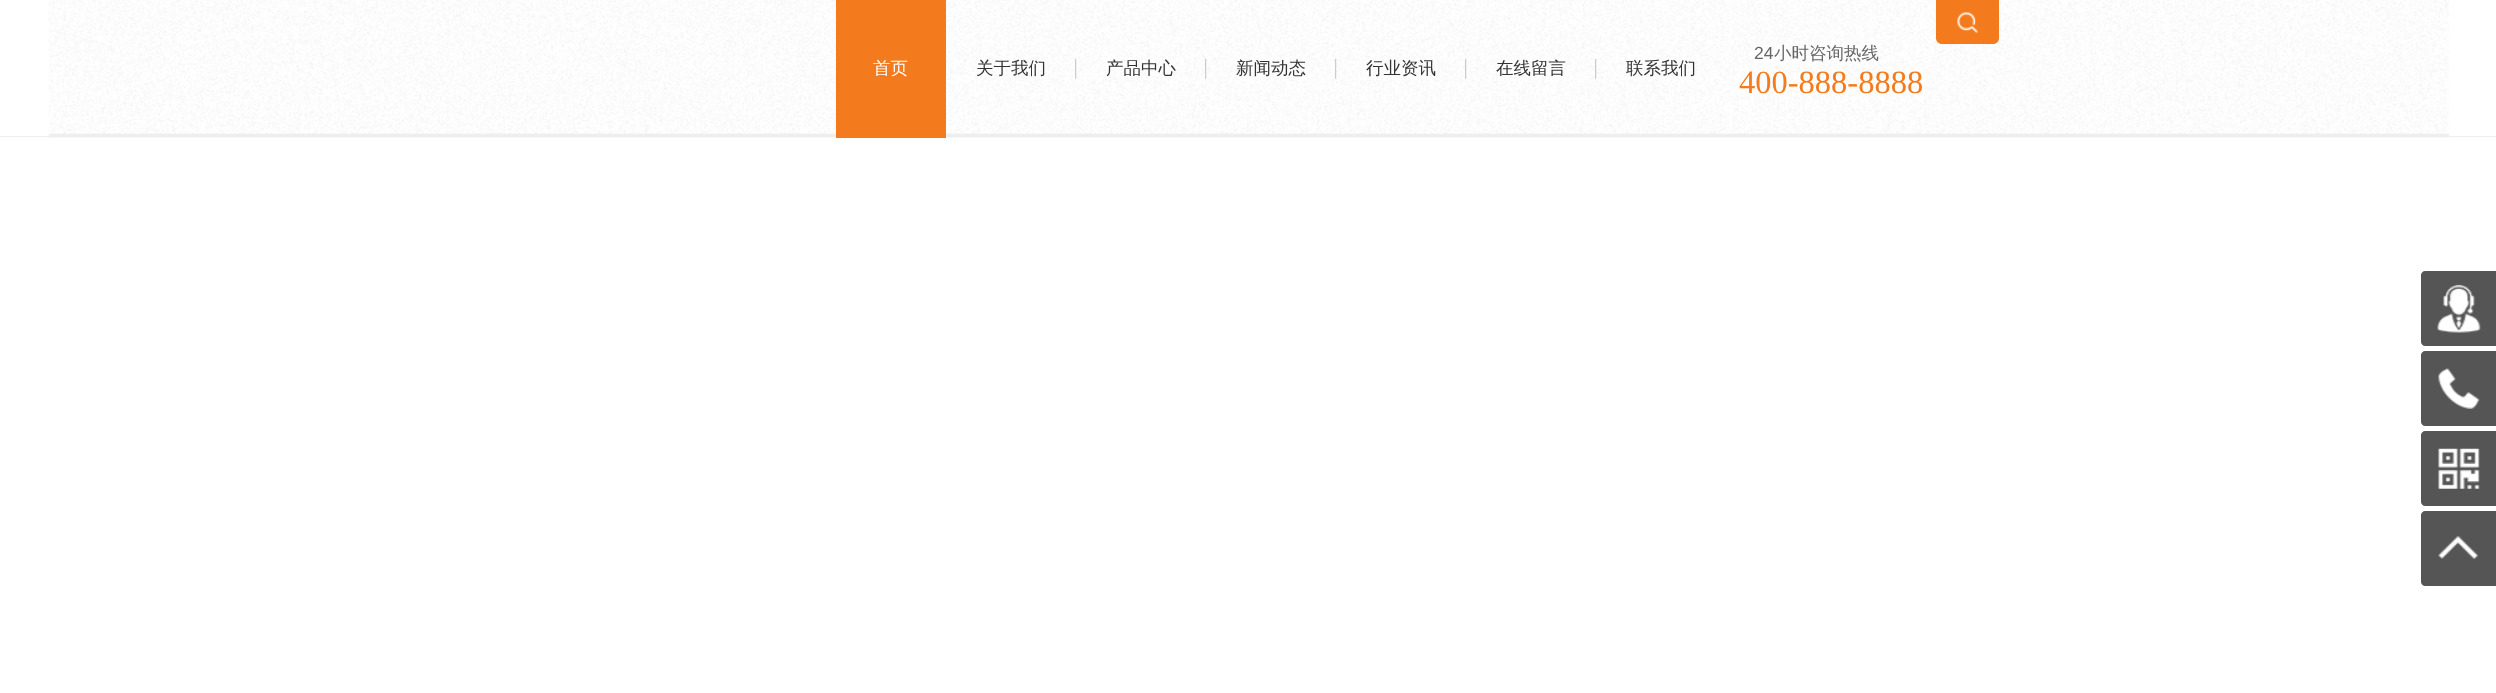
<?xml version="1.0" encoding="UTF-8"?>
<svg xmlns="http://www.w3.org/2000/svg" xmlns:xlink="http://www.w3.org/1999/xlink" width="2496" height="693">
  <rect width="100%" height="100%" fill="#ffffff" />
  <image x="48" y="0" width="2401" height="138" xlink:href="image1.png" />
  <rect y="136" width="2496" height="1" fill="#eeeeee" />
  <path d="M 1936 0 h 63 v 38 c 0 3.5 -2.5 6 -6 6 h -51 c -3.5 0 -6 -2.5 -6 -6 z" fill="#f37b1d" />
  <image x="1957" y="12" width="21" height="21" xlink:href="image2.png" />
  <rect x="836" width="110" height="138" fill="#f37b1d" />
  <image x="1075" y="58" width="2" height="21" xlink:href="image3.png" />
  <image x="1205" y="58" width="2" height="21" xlink:href="image4.png" />
  <image x="1335" y="58" width="2" height="21" xlink:href="image5.png" />
  <image x="1465" y="58" width="2" height="21" xlink:href="image6.png" />
  <image x="1595" y="58" width="2" height="21" xlink:href="image7.png" />
  <path d="M 2425 271 h 71 v 75 h -71 c -2 0 -4 -2 -4 -4 v -67 c 0 -2 2 -4 4 -4 z" fill="#555555" />
  <image x="2437" y="284" width="44" height="49" xlink:href="image8.png" />
  <path d="M 2425 351 h 71 v 75 h -71 c -2 0 -4 -2 -4 -4 v -67 c 0 -2 2 -4 4 -4 z" fill="#555555" />
  <image x="2438" y="368" width="42" height="41" xlink:href="image9.png" />
  <path d="M 2425 431 h 71 v 75 h -71 c -2 0 -4 -2 -4 -4 v -67 c 0 -2 2 -4 4 -4 z" fill="#555555" />
  <image x="2438" y="448" width="42" height="41" xlink:href="image10.png" />
  <path d="M 2425 511 h 71 v 75 h -71 c -2 0 -4 -2 -4 -4 v -67 c 0 -2 2 -4 4 -4 z" fill="#555555" />
  <image x="2438" y="536" width="41" height="23" xlink:href="image11.png" />
  <text x="873" y="74" style="font-family: WenQuanYi Zen Hei; font-size: 17.5px; font-weight: 500; fill: #ffffff">首页</text>
  <text x="976" y="74" style="font-family: WenQuanYi Zen Hei; font-size: 17.5px; font-weight: 500; fill: #333333">关于我们</text>
  <text x="1106" y="74" style="font-family: WenQuanYi Zen Hei; font-size: 17.5px; font-weight: 500; fill: #333333">产品中心</text>
  <text x="1236" y="74" style="font-family: WenQuanYi Zen Hei; font-size: 17.5px; font-weight: 500; fill: #333333">新闻动态</text>
  <text x="1366" y="74" style="font-family: WenQuanYi Zen Hei; font-size: 17.5px; font-weight: 500; fill: #333333">行业资讯</text>
  <text x="1496" y="74" style="font-family: WenQuanYi Zen Hei; font-size: 17.5px; font-weight: 500; fill: #333333">在线留言</text>
  <text x="1626" y="74" style="font-family: WenQuanYi Zen Hei; font-size: 17.5px; font-weight: 500; fill: #333333">联系我们</text>
  <text x="1754" y="59" style="font-family: Liberation Sans; font-size: 17.5px; fill: #666666">24</text>
  <text x="1774" y="59" style="font-family: WenQuanYi Zen Hei; font-size: 17.5px; font-weight: 500; fill: #666666">小时咨询热线</text>
  <text x="1739" y="93" style="font-family: Liberation Serif; font-size: 32.5px; fill: #f37b1d">400-888-8888</text>
</svg>
